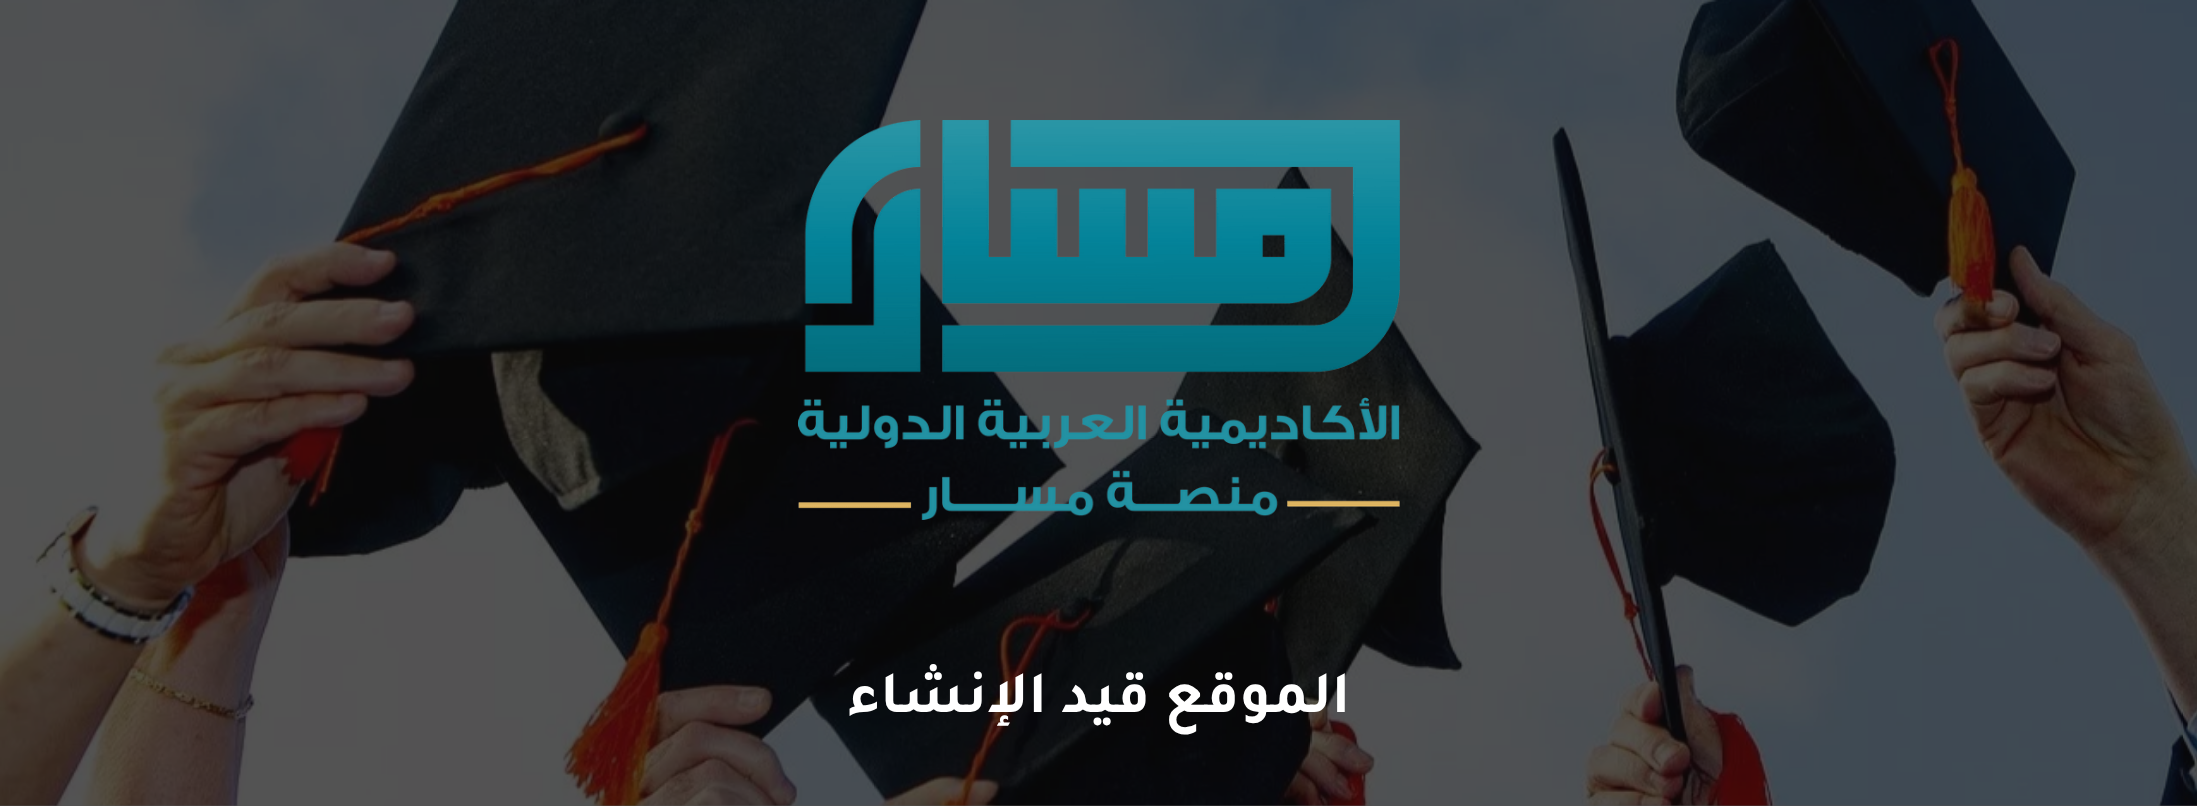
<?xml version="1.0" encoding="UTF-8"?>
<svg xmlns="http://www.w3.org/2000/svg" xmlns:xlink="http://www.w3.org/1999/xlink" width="2197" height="806">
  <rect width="100%" height="100%" fill="#545454" />
  <image x="0" y="0" width="2197" height="806" xlink:href="image1.png" />
  <image x="798" y="120" width="602" height="400" xlink:href="image2.png" />
  <text x="1350" y="712" style="font-family: Tajawal; font-size: 60px; font-weight: bold; direction: rtl; fill: #ffffff">الموقع قيد الإنشاء</text>
</svg>
